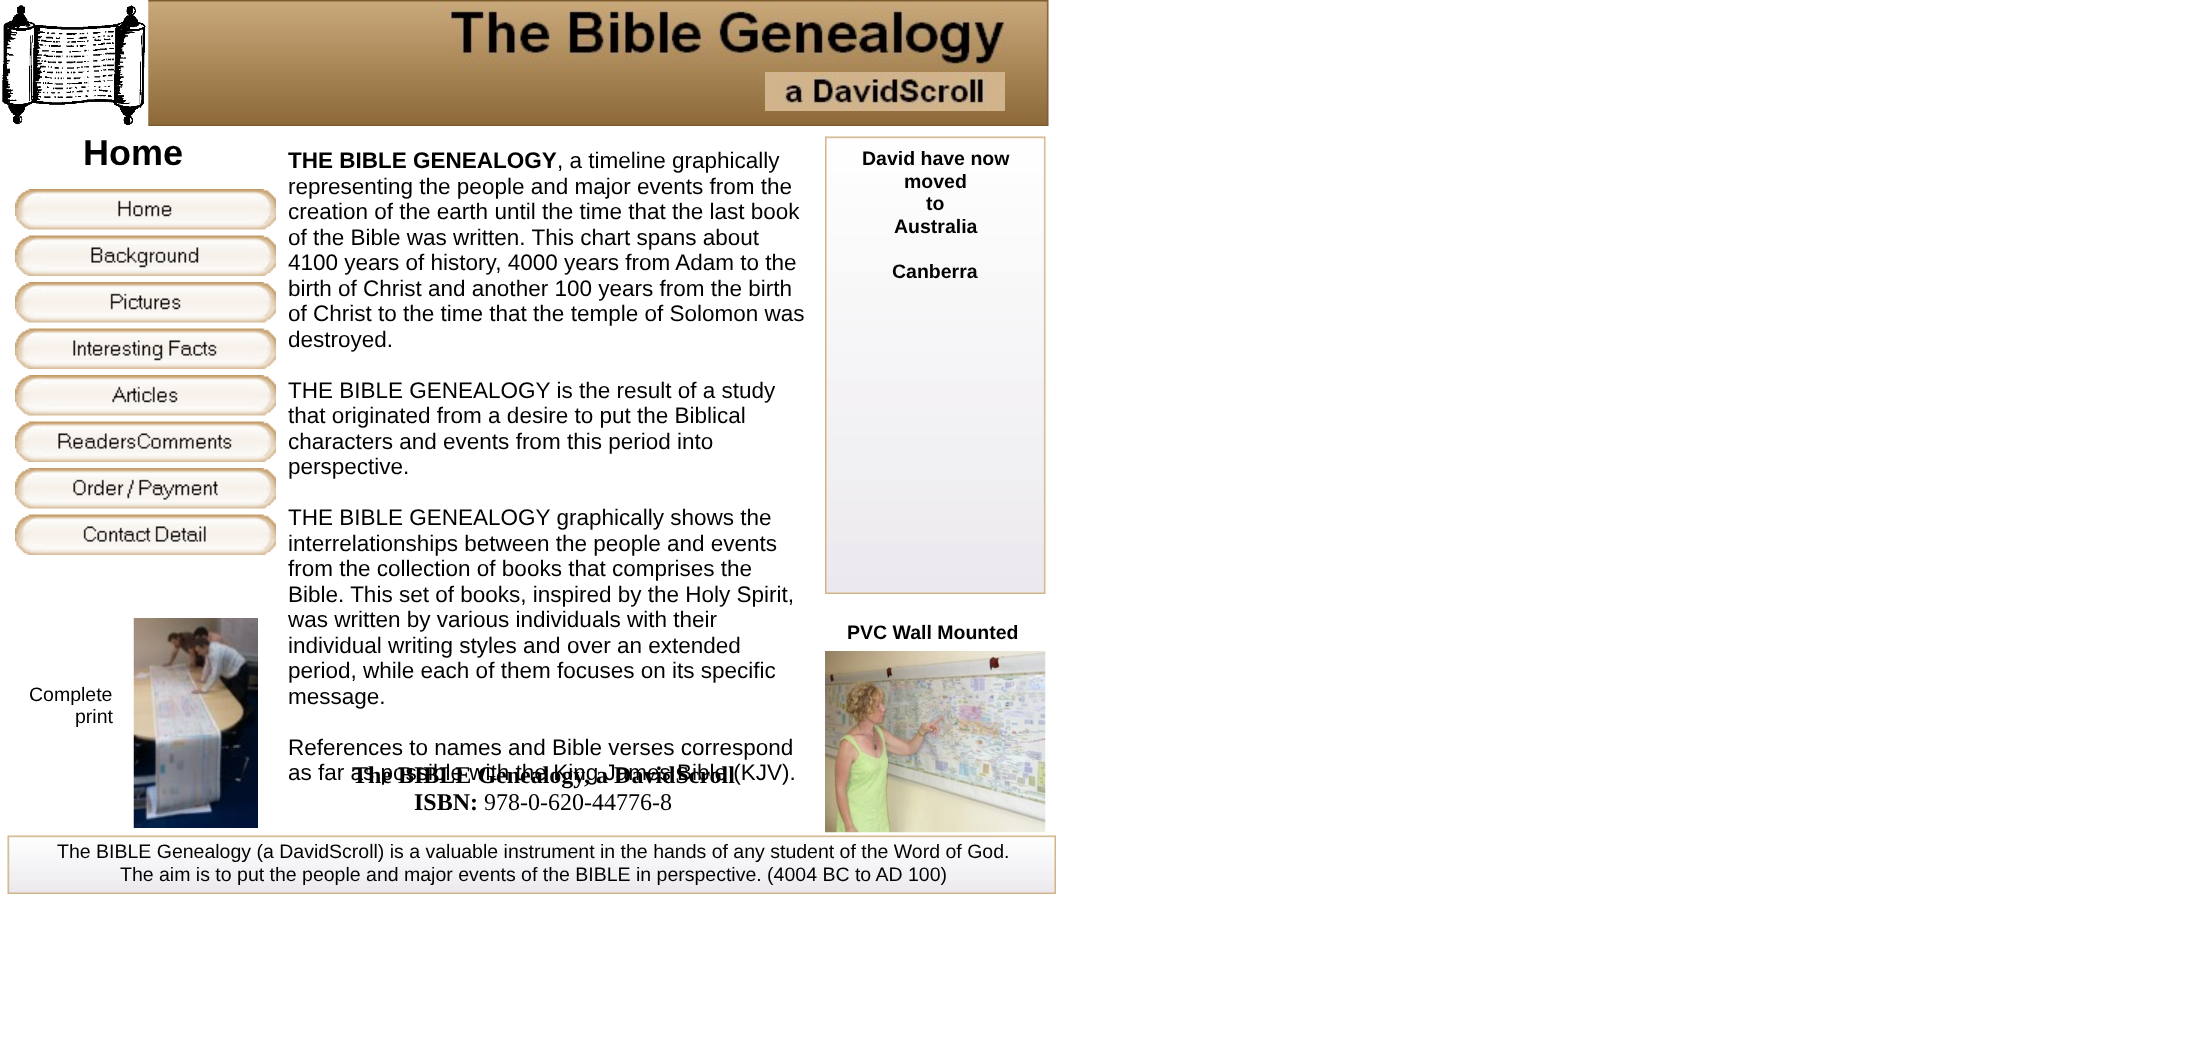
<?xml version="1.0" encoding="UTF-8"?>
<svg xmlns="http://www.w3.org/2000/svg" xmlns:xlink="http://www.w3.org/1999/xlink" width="2199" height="1055">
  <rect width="100%" height="100%" fill="#ffffff" />
  <image x="148" y="0" width="901" height="126" xlink:href="image2.png" />
  <image x="0" y="0" width="149" height="126" xlink:href="image1.png" />
  <image x="765" y="72" width="240" height="39" xlink:href="image3.png" />
  <image x="825" y="136" width="221" height="458" xlink:href="image4.png" />
  <image x="15" y="189" width="261" height="41" xlink:href="image5.png" />
  <image x="15" y="235" width="261" height="41" xlink:href="image6.png" />
  <image x="15" y="282" width="261" height="41" xlink:href="image7.png" />
  <image x="15" y="328" width="261" height="41" xlink:href="image8.png" />
  <image x="15" y="375" width="261" height="41" xlink:href="image9.png" />
  <image x="15" y="421" width="261" height="41" xlink:href="image10.png" />
  <image x="15" y="468" width="261" height="41" xlink:href="image11.png" />
  <image x="15" y="514" width="261" height="41" xlink:href="image12.png" />
  <image x="133" y="618" width="125" height="210" xlink:href="image13.png" />
  <image x="825" y="651" width="221" height="182" xlink:href="image14.png" />
  <image x="7" y="835" width="1049" height="59" xlink:href="image15.png" />
  <text x="83" y="165" style="font-family: Liberation Sans; font-size: 36px; font-weight: bold; fill: #000000">Home</text>
  <text x="288" y="168" style="font-family: Liberation Sans; font-size: 22.5px; font-weight: bold; fill: #000000">THE BIBLE GENEALOGY</text>
  <text x="557" y="168" style="font-family: Liberation Sans; font-size: 22.5px; fill: #000000">, a timeline graphically</text>
  <text x="288" y="194" style="font-family: Liberation Sans; font-size: 22.5px; fill: #000000">representing the people and major events from the</text>
  <text x="288" y="219" style="font-family: Liberation Sans; font-size: 22.5px; fill: #000000">creation of the earth until the time that the last book</text>
  <text x="288" y="245" style="font-family: Liberation Sans; font-size: 22.5px; fill: #000000">of the Bible was written. This chart spans about</text>
  <text x="288" y="270" style="font-family: Liberation Sans; font-size: 22.5px; fill: #000000">4100 years of history, 4000 years from Adam to the</text>
  <text x="288" y="296" style="font-family: Liberation Sans; font-size: 22.5px; fill: #000000">birth of Christ and another 100 years from the birth</text>
  <text x="288" y="321" style="font-family: Liberation Sans; font-size: 22.5px; fill: #000000">of Christ to the time that the temple of Solomon was</text>
  <text x="288" y="347" style="font-family: Liberation Sans; font-size: 22.5px; fill: #000000">destroyed.</text>
  <text x="288" y="398" style="font-family: Liberation Sans; font-size: 22.5px; fill: #000000">THE BIBLE GENEALOGY is the result of a study</text>
  <text x="288" y="423" style="font-family: Liberation Sans; font-size: 22.5px; fill: #000000">that originated from a desire to put the Biblical</text>
  <text x="288" y="449" style="font-family: Liberation Sans; font-size: 22.5px; fill: #000000">characters and events from this period into</text>
  <text x="288" y="474" style="font-family: Liberation Sans; font-size: 22.5px; fill: #000000">perspective.</text>
  <text x="288" y="525" style="font-family: Liberation Sans; font-size: 22.5px; fill: #000000">THE BIBLE GENEALOGY graphically shows the</text>
  <text x="288" y="551" style="font-family: Liberation Sans; font-size: 22.5px; fill: #000000">interrelationships between the people and events</text>
  <text x="288" y="576" style="font-family: Liberation Sans; font-size: 22.5px; fill: #000000">from the collection of books that comprises the</text>
  <text x="288" y="602" style="font-family: Liberation Sans; font-size: 22.5px; fill: #000000">Bible. This set of books, inspired by the Holy Spirit,</text>
  <text x="288" y="627" style="font-family: Liberation Sans; font-size: 22.5px; fill: #000000">was written by various individuals with their</text>
  <text x="288" y="653" style="font-family: Liberation Sans; font-size: 22.5px; fill: #000000">individual writing styles and over an extended</text>
  <text x="288" y="678" style="font-family: Liberation Sans; font-size: 22.5px; fill: #000000">period, while each of them focuses on its specific</text>
  <text x="288" y="704" style="font-family: Liberation Sans; font-size: 22.5px; fill: #000000">message.</text>
  <text x="288" y="755" style="font-family: Liberation Sans; font-size: 22.5px; fill: #000000">References to names and Bible verses correspond</text>
  <text x="288" y="780" style="font-family: Liberation Sans; font-size: 22.5px; fill: #000000">as far as possible with the King James Bible (KJV).</text>
  <text x="862" y="165" style="font-family: Liberation Sans; font-size: 19.5px; font-weight: bold; fill: #000000">David have now</text>
  <text x="904" y="188" style="font-family: Liberation Sans; font-size: 19.5px; font-weight: bold; fill: #000000">moved</text>
  <text x="926" y="210" style="font-family: Liberation Sans; font-size: 19.5px; font-weight: bold; fill: #000000">to</text>
  <text x="894" y="233" style="font-family: Liberation Sans; font-size: 19.5px; font-weight: bold; fill: #000000">Australia</text>
  <text x="892" y="278" style="font-family: Liberation Sans; font-size: 19.5px; font-weight: bold; fill: #000000">Canberra</text>
  <text x="847" y="639" style="font-family: Liberation Sans; font-size: 19.5px; font-weight: bold; fill: #000000">PVC Wall Mounted</text>
  <text x="29" y="701" style="font-family: Liberation Sans; font-size: 19.5px; fill: #000000">Complete</text>
  <text x="75" y="723" style="font-family: Liberation Sans; font-size: 19.5px; fill: #000000">print</text>
  <text x="352" y="783" style="font-family: Liberation Serif; font-size: 24px; font-weight: bold; fill: #000000">The BIBLE Genealogy, a DavidScroll</text>
  <text x="414" y="810" style="font-family: Liberation Serif; font-size: 24px; font-weight: bold; fill: #000000">ISBN:</text>
  <text x="484" y="810" style="font-family: Liberation Serif; font-size: 24px; fill: #000000">978-0-620-44776-8</text>
  <text x="57" y="858" style="font-family: Liberation Sans; font-size: 19.5px; fill: #000000">The BIBLE Genealogy (a DavidScroll) is a valuable instrument in the hands of any student of the Word of God.</text>
  <text x="120" y="881" style="font-family: Liberation Sans; font-size: 19.5px; fill: #000000">The aim is to put the people and major events of the BIBLE in perspective. (4004 BC to AD 100)</text>
</svg>
